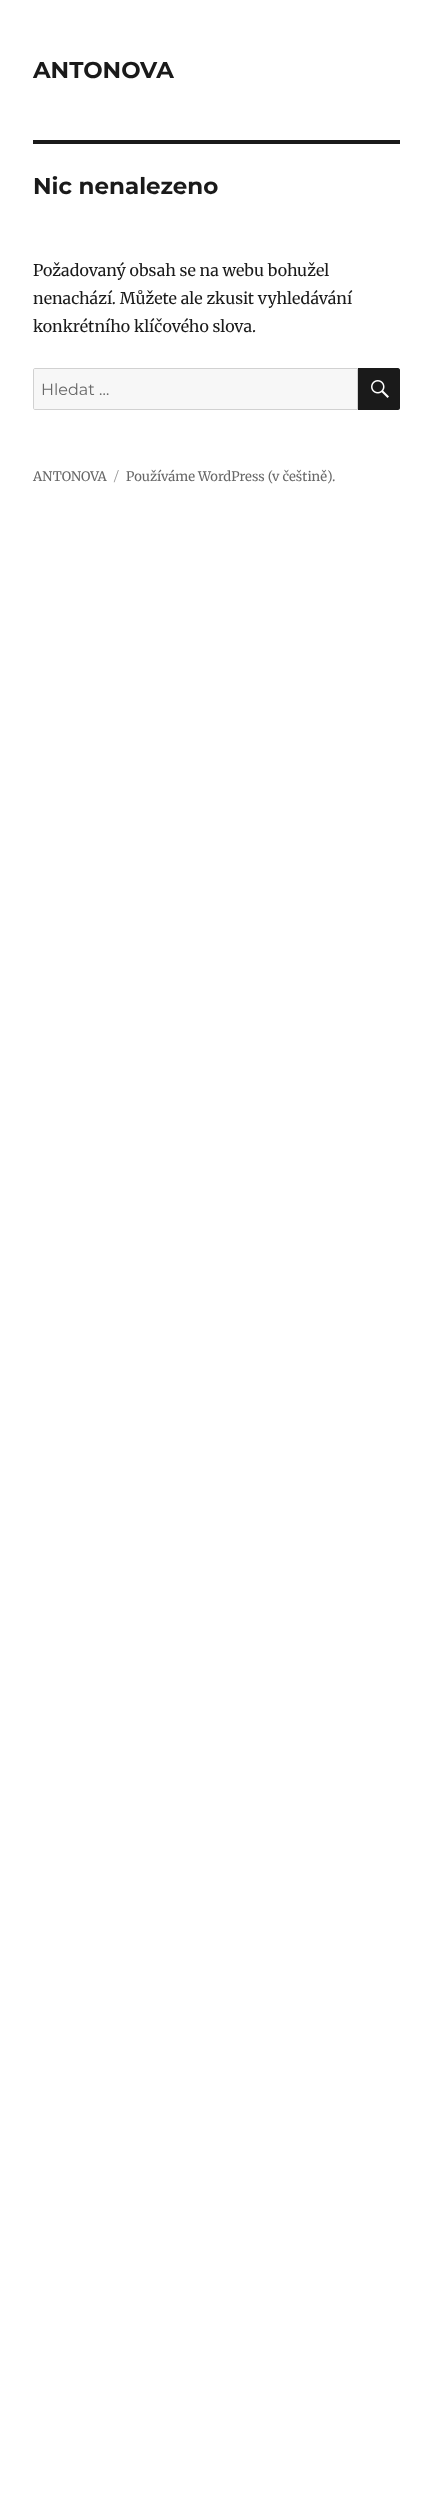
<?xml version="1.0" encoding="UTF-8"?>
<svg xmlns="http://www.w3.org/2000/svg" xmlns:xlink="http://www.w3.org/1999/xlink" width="433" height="2520">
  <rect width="100%" height="100%" fill="#ffffff" />
  <rect x="33" y="140" width="367" height="4" fill="#1a1a1a" />
  <path d="M 35 368.5 h 322.5 v 41 h -322.5 c -1 0 -1.5 -0.5 -1.5 -1.5 v -38 c 0 -1 0.5 -1.5 1.5 -1.5 z" fill="#f7f7f7" stroke="#d1d1d1" />
  <path d="M 358 368 h 40 c 1 0 2 1 2 2 v 38 c 0 1 -1 2 -2 2 h -40 z" fill="#1a1a1a" />
  <image x="371" y="380" width="18" height="18" xlink:href="image1.png" />
  <text x="33" y="78" style="font-family: Montserrat; font-size: 23px; font-weight: bold; fill: #1a1a1a">ANTONOVA</text>
  <text x="33" y="194" style="font-family: Montserrat; font-size: 23px; font-weight: bold; fill: #1a1a1a">Nic nenalezeno</text>
  <text x="33" y="276" style="font-family: Merriweather; font-size: 16px; fill: #1a1a1a">Požadovaný obsah se na webu bohužel</text>
  <text x="33" y="304" style="font-family: Merriweather; font-size: 16px; fill: #1a1a1a">nenachází. Můžete ale zkusit vyhledávání</text>
  <text x="33" y="332" style="font-family: Merriweather; font-size: 16px; fill: #1a1a1a">konkrétního klíčového slova.</text>
  <text x="41" y="395" style="font-family: Montserrat; font-size: 16px; fill: #686868">Hledat …</text>
  <text x="33" y="481" style="font-family: Merriweather; font-size: 13px; fill: #686868">ANTONOVA</text>
  <text x="114" y="481" style="font-family: Montserrat; font-size: 13px; fill: #959595">/</text>
  <text x="126" y="481" style="font-family: Merriweather; font-size: 13px; fill: #686868">Používáme WordPress (v češtině).</text>
</svg>
